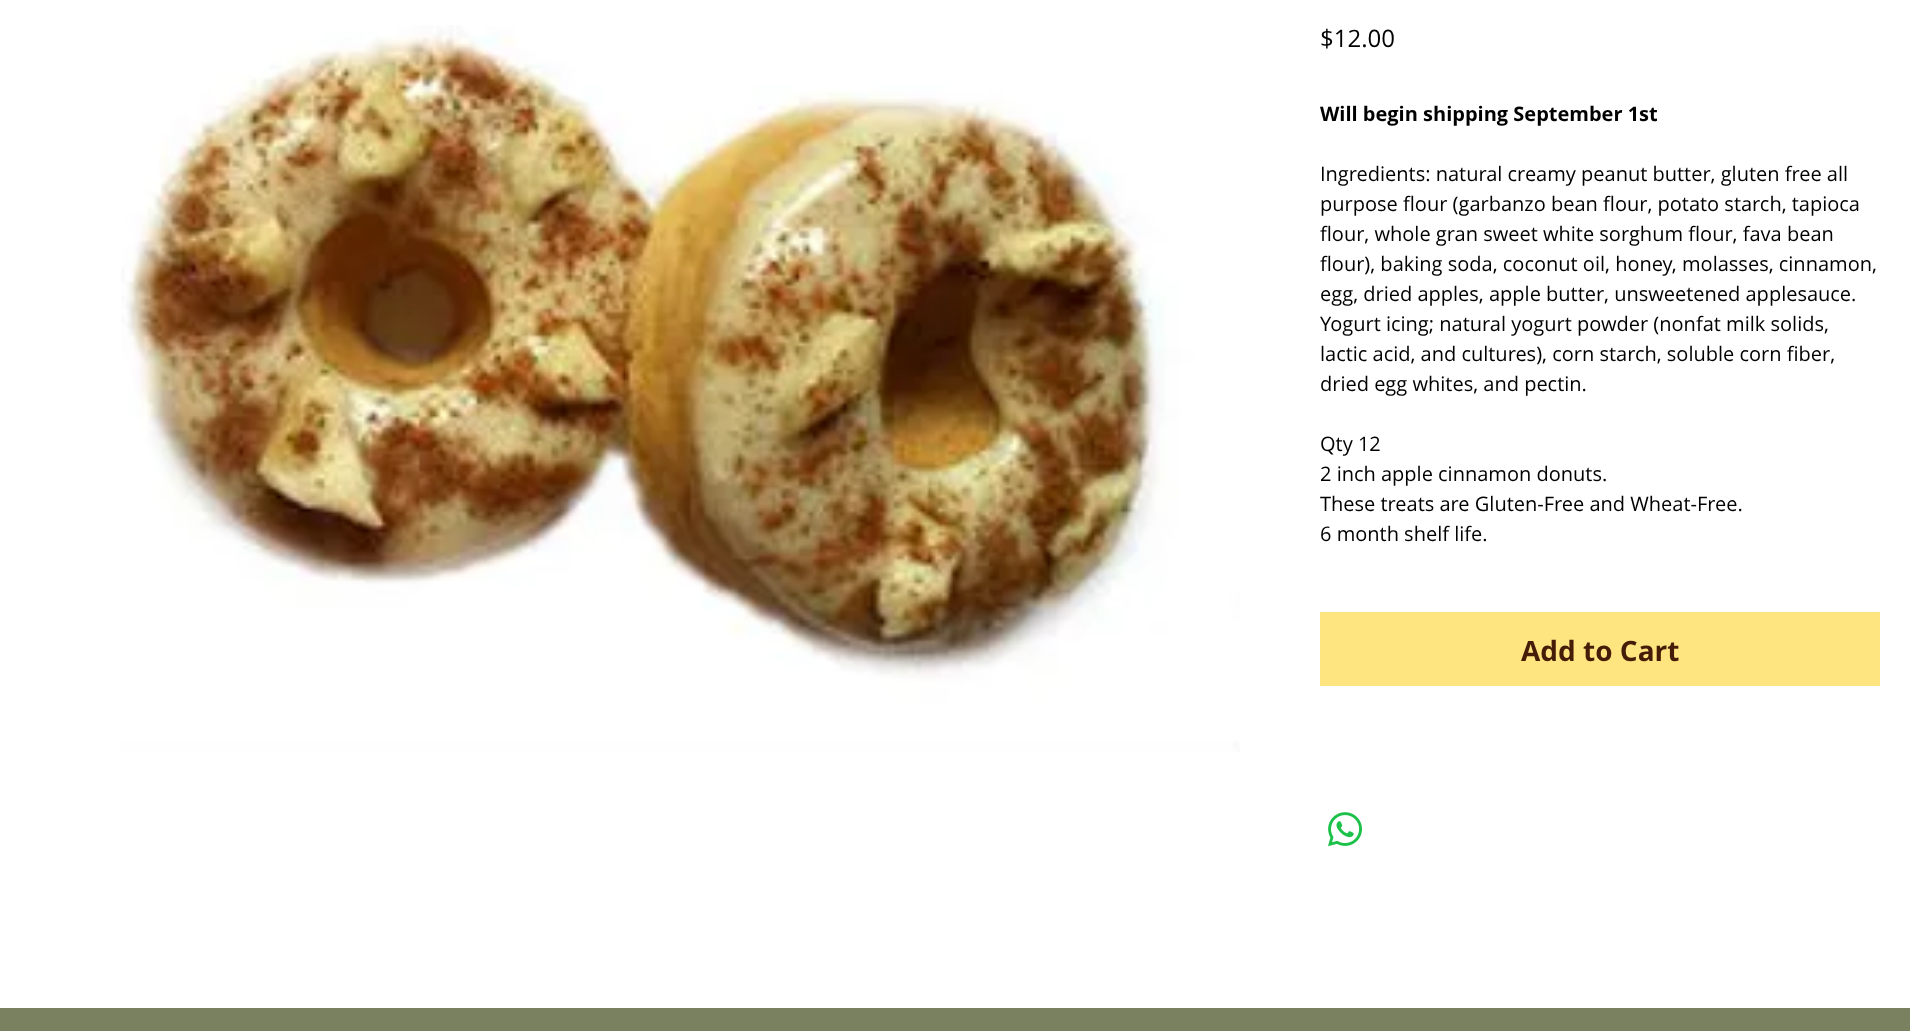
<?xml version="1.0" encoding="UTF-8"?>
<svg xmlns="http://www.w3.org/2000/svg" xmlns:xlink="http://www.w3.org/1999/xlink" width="1910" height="1031">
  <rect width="100%" height="100%" fill="#ffffff" />
  <image x="121" y="25" width="1119" height="727" xlink:href="image1.png" />
  <rect x="1320" y="612" width="560" height="74" fill="#ffe57f" />
  <image x="1328" y="812" width="34" height="35" xlink:href="image2.png" />
  <rect y="1008" width="1910" height="23" fill="#7a8160" />
  <text x="1320" y="47" style="font-family: Open Sans; font-size: 24px; fill: #000000">$12.00</text>
  <text x="1320" y="121" style="font-family: Open Sans; font-size: 20px; font-weight: bold; fill: #000000">Will begin shipping September 1st</text>
  <text x="1320" y="181" style="font-family: Open Sans; font-size: 20px; fill: #000000">Ingredients: natural creamy peanut butter, gluten free all</text>
  <text x="1320" y="211" style="font-family: Open Sans; font-size: 20px; fill: #000000">purpose flour (garbanzo bean flour, potato starch, tapioca</text>
  <text x="1320" y="241" style="font-family: Open Sans; font-size: 20px; fill: #000000">flour, whole gran sweet white sorghum flour, fava bean</text>
  <text x="1320" y="271" style="font-family: Open Sans; font-size: 20px; fill: #000000">flour), baking soda, coconut oil, honey, molasses, cinnamon,</text>
  <text x="1320" y="301" style="font-family: Open Sans; font-size: 20px; fill: #000000">egg, dried apples, apple butter, unsweetened applesauce.</text>
  <text x="1320" y="331" style="font-family: Open Sans; font-size: 20px; fill: #000000">Yogurt icing; natural yogurt powder (nonfat milk solids,</text>
  <text x="1320" y="361" style="font-family: Open Sans; font-size: 20px; fill: #000000">lactic acid, and cultures), corn starch, soluble corn fiber,</text>
  <text x="1320" y="391" style="font-family: Open Sans; font-size: 20px; fill: #000000">dried egg whites, and pectin.</text>
  <text x="1320" y="451" style="font-family: Open Sans; font-size: 20px; fill: #000000">Qty 12</text>
  <text x="1320" y="481" style="font-family: Open Sans; font-size: 20px; fill: #000000">2 inch apple cinnamon donuts.</text>
  <text x="1320" y="511" style="font-family: Open Sans; font-size: 20px; fill: #000000">These treats are Gluten-Free and Wheat-Free.</text>
  <text x="1320" y="541" style="font-family: Open Sans; font-size: 20px; fill: #000000">6 month shelf life.</text>
  <text x="1521" y="661" style="font-family: Open Sans; font-size: 28px; font-weight: bold; fill: #441c08">Add to Cart</text>
</svg>
